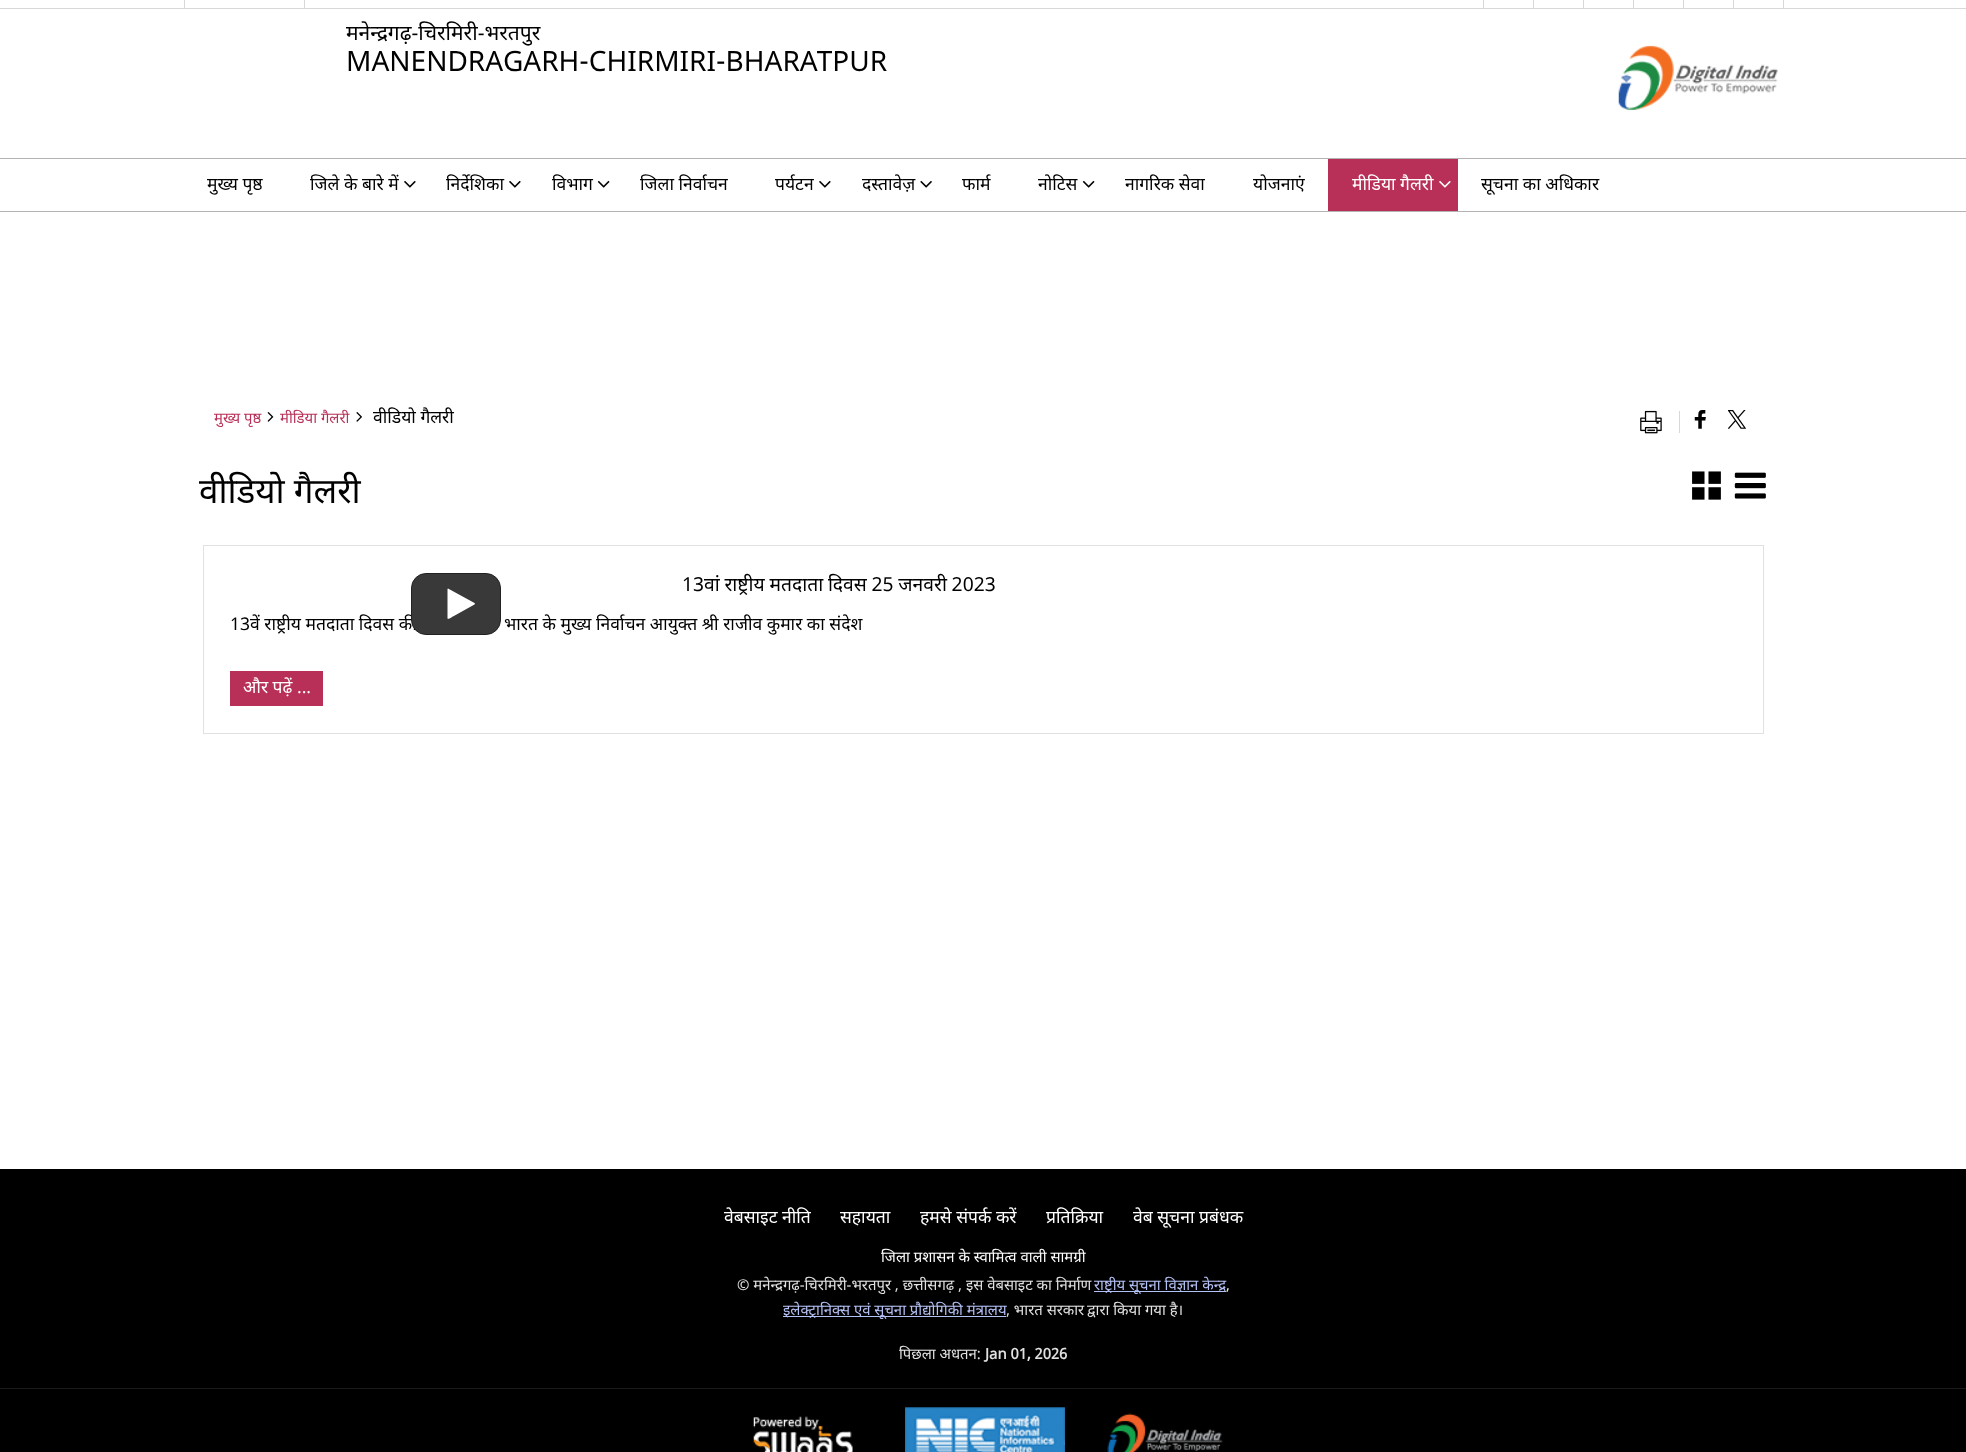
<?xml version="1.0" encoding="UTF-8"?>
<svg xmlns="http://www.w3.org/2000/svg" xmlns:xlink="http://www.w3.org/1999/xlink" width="1966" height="1452">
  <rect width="100%" height="100%" fill="#ffffff" />
  <rect y="8" width="1966" height="1" fill="#d8d8d8" />
  <rect x="184" width="1" height="8" fill="#d8d8d8" />
  <rect x="304" width="1" height="8" fill="#d8d8d8" />
  <rect x="1483" width="1" height="8" fill="#d8d8d8" />
  <rect x="1533" width="1" height="8" fill="#d8d8d8" />
  <rect x="1583" width="1" height="8" fill="#d8d8d8" />
  <rect x="1633" width="1" height="8" fill="#d8d8d8" />
  <rect x="1683" width="1" height="8" fill="#d8d8d8" />
  <rect x="1783" width="1" height="8" fill="#d8d8d8" />
  <rect x="1733" width="1" height="8" fill="#d8d8d8" />
  <image x="1618" y="45" width="160" height="65" xlink:href="image1.png" />
  <rect y="158" width="1966" height="1" fill="#b3b3b3" />
  <rect y="211" width="1966" height="1" fill="#b3b3b3" />
  <image x="404" y="180" width="12" height="8" xlink:href="image2.png" />
  <image x="509" y="180" width="12" height="8" xlink:href="image2.png" />
  <image x="597" y="180" width="13" height="8" xlink:href="image3.png" />
  <image x="819" y="180" width="12" height="8" xlink:href="image2.png" />
  <image x="920" y="180" width="12" height="8" xlink:href="image4.png" />
  <image x="1082" y="180" width="13" height="8" xlink:href="image3.png" />
  <rect x="1328" y="159" width="130" height="52" fill="#b83058" />
  <image x="1439" y="180" width="12" height="8" xlink:href="image5.png" />
  <image x="267" y="412" width="7" height="10" xlink:href="image6.png" />
  <image x="356" y="412" width="6" height="10" xlink:href="image7.png" />
  <image x="1640" y="410" width="22" height="24" xlink:href="image8.png" />
  <rect x="1679" y="411" width="1" height="22" fill="#d8d8d8" />
  <image x="1694" y="410" width="12" height="19" xlink:href="image9.png" />
  <image x="1728" y="410" width="18" height="19" xlink:href="image10.png" />
  <image x="1692" y="471" width="29" height="29" xlink:href="image11.png" />
  <image x="1734" y="472" width="32" height="27" xlink:href="image12.png" />
  <rect x="203.5" y="545.5" width="1560" height="188" fill="none" stroke="#e1e1e1" />
  <rect x="230" y="671" width="93" height="35" fill="#b83058" />
  <rect y="1169" width="1966" height="283" fill="#000000" />
  <rect x="1094" y="1291" width="132" height="1" fill="#b4c1f5" />
  <rect x="783" y="1316" width="223" height="1" fill="#b4c1f5" />
  <rect y="1388" width="1966" height="1" fill="#1a1a1a" />
  <image x="753" y="1416" width="100" height="36" xlink:href="image13.png" />
  <image x="905" y="1407" width="160" height="45" xlink:href="image14.png" />
  <image x="1107" y="1413" width="116" height="39" xlink:href="image15.png" />
  <text x="346" y="40" style="font-family: Noto Sans; font-size: 21px; fill: #000000">मनेन्द्रगढ़-चिरमिरी-भरतपुर</text>
  <text x="346" y="71" style="font-family: 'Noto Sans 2'; font-size: 28px; fill: #000000">MANENDRAGARH-CHIRMIRI-BHARATPUR</text>
  <text x="207" y="190" style="font-family: Noto Sans; font-size: 17.5px; fill: #000000">मुख्य पृष्ठ</text>
  <text x="310" y="190" style="font-family: Noto Sans; font-size: 17.5px; fill: #000000">जिले के बारे में</text>
  <text x="446" y="190" style="font-family: Noto Sans; font-size: 17.5px; fill: #000000">निर्देशिका</text>
  <text x="552" y="190" style="font-family: Noto Sans; font-size: 17.5px; fill: #000000">विभाग</text>
  <text x="640" y="190" style="font-family: Noto Sans; font-size: 17.5px; fill: #000000">जिला निर्वाचन</text>
  <text x="775" y="190" style="font-family: Noto Sans; font-size: 17.5px; fill: #000000">पर्यटन</text>
  <text x="862" y="190" style="font-family: Noto Sans; font-size: 17.5px; fill: #000000">दस्तावेज़</text>
  <text x="962" y="190" style="font-family: Noto Sans; font-size: 17.5px; fill: #000000">फार्म</text>
  <text x="1038" y="190" style="font-family: Noto Sans; font-size: 17.5px; fill: #000000">नोटिस</text>
  <text x="1125" y="190" style="font-family: Noto Sans; font-size: 17.5px; fill: #000000">नागरिक सेवा</text>
  <text x="1253" y="190" style="font-family: Noto Sans; font-size: 17.5px; fill: #000000">योजनाएं</text>
  <text x="1352" y="190" style="font-family: Noto Sans; font-size: 17.5px; fill: #ffffff">मीडिया गैलरी</text>
  <text x="1481" y="190" style="font-family: Noto Sans; font-size: 17.5px; fill: #000000">सूचना का अधिकार</text>
  <text x="214" y="423" style="font-family: Noto Sans; font-size: 14.9px; fill: #b83058">मुख्य पृष्ठ</text>
  <text x="280" y="423" style="font-family: Noto Sans; font-size: 14.9px; fill: #b83058">मीडिया गैलरी</text>
  <text x="373" y="423" style="font-family: Noto Sans; font-size: 17.5px; fill: #000000">वीडियो गैलरी</text>
  <text x="199" y="503" style="font-family: Noto Sans; font-size: 35px; fill: #000000">वीडियो गैलरी</text>
  <text x="682" y="591" word-spacing="-0.25" style="font-family: Noto Sans; font-size: 19.25px; fill: #000000">13वां राष्ट्रीय मतदाता दिवस 25 जनवरी 2023</text>
  <text x="230" y="630" style="font-family: Noto Sans; font-size: 17.5px; fill: #000000">13वें राष्ट्रीय मतदाता दिवस की</text>
  <text x="504" y="630" style="font-family: Noto Sans; font-size: 17.5px; fill: #000000">भारत के मुख्य निर्वाचन आयुक्त श्री राजीव कुमार का संदेश</text>
  <text x="243" y="693" style="font-family: Noto Sans; font-size: 17.5px; fill: #ffffff">और पढ़ें ...</text>
  <rect x="411.5" y="573.5" width="89" height="61" rx="14.5" fill="#3a3939" stroke="#222222" />
  <path d="M 474.5 604.5 l -21.5 12 c -0.5 0 -4.5 3.5 -5.5 2 v -29.5 l 0.5 -0.5 l 26.5 14.5 l 0.5 0.5 z" fill="#ffffff" />
  <text x="724" y="1223" style="font-family: Noto Sans; font-size: 17.5px; fill: #ffffff">वेबसाइट नीति</text>
  <text x="840" y="1223" style="font-family: Noto Sans; font-size: 17.5px; fill: #ffffff">सहायता</text>
  <text x="920" y="1223" style="font-family: Noto Sans; font-size: 17.5px; fill: #ffffff">हमसे संपर्क करें</text>
  <text x="1046" y="1223" style="font-family: Noto Sans; font-size: 17.5px; fill: #ffffff">प्रतिक्रिया</text>
  <text x="1133" y="1223" style="font-family: Noto Sans; font-size: 17.5px; fill: #ffffff">वेब सूचना प्रबंधक</text>
  <text x="881" y="1262" style="font-family: Noto Sans; font-size: 14.9px; fill: #ffffff">जिला प्रशासन के स्वामित्व वाली सामग्री</text>
  <text x="737" y="1290" style="font-family: Noto Sans; font-size: 14.9px; fill: #e1e1e1">© मनेन्द्रगढ़-चिरमिरी-भरतपुर , छत्तीसगढ़ , इस वेबसाइट का निर्माण</text>
  <text x="1094" y="1290" style="font-family: Noto Sans; font-size: 14.9px; fill: #b4c1f5">राष्ट्रीय सूचना विज्ञान केन्द्र</text>
  <text x="1226" y="1290" style="font-family: 'Noto Sans 2'; font-size: 14.9px; fill: #e1e1e1">,</text>
  <text x="783" y="1315" style="font-family: Noto Sans; font-size: 14.9px; fill: #b4c1f5">इलेक्ट्रानिक्स एवं सूचना प्रौद्योगिकी मंत्रालय</text>
  <text x="1006" y="1315" style="font-family: Noto Sans; font-size: 14.9px; fill: #e1e1e1">, भारत सरकार</text>
  <text x="1087" y="1315" style="font-family: Noto Sans; font-size: 14.9px; fill: #e1e1e1">द्वारा किया गया है।</text>
  <text x="899" y="1359" style="font-family: Noto Sans; font-size: 14.9px; fill: #e1e1e1">पिछला अधतन:</text>
  <text x="985" y="1359" style="font-family: Noto Sans; font-size: 14.9px; font-weight: bold; fill: #e1e1e1">Jan 01, 2026</text>
</svg>
